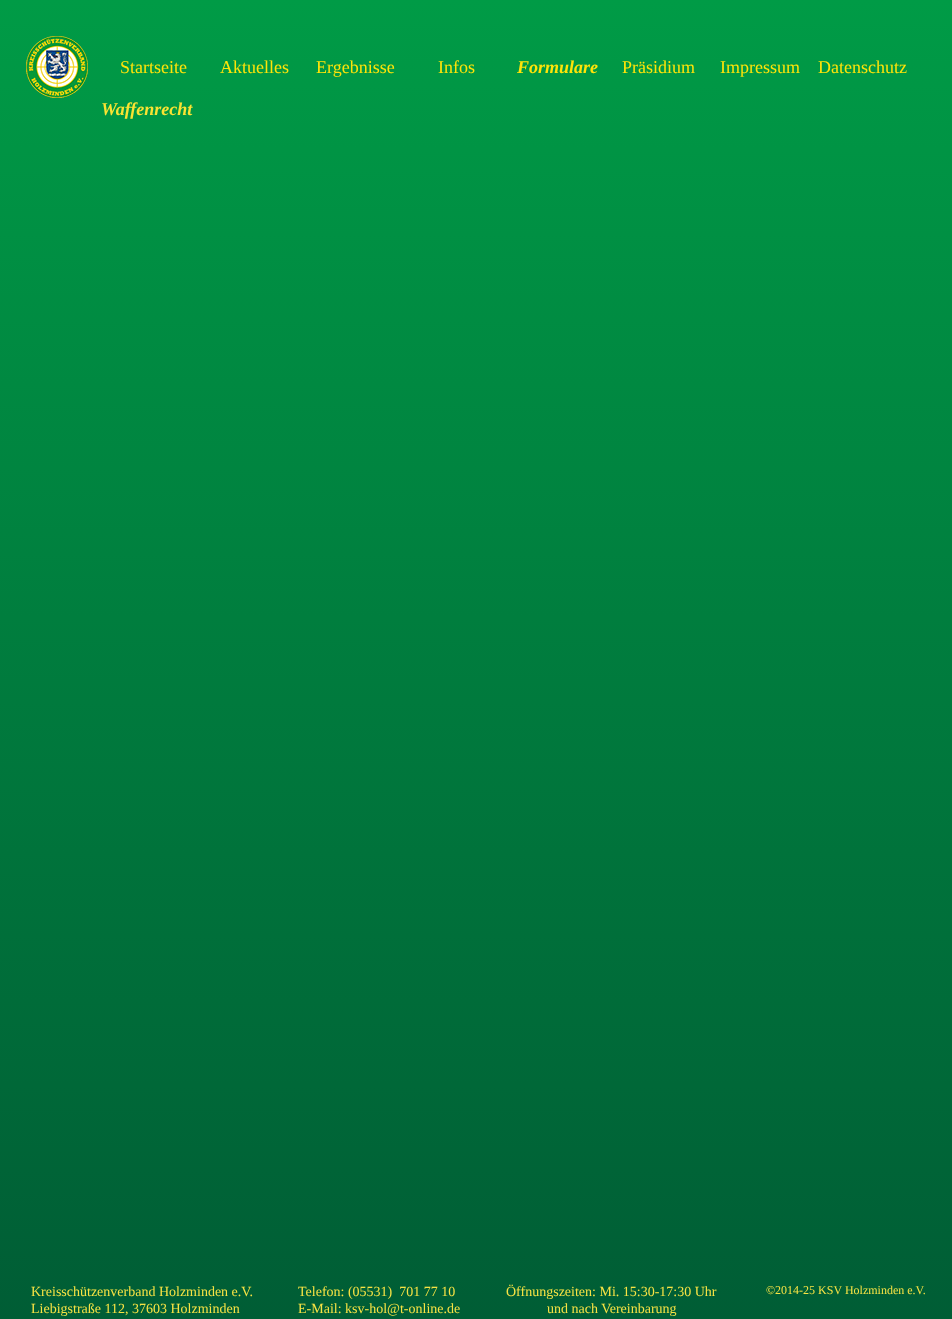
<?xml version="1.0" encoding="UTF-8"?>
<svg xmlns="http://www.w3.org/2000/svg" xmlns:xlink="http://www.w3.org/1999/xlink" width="952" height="1319">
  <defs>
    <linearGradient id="g1" gradientUnits="userSpaceOnUse" x1="476" y1="0" x2="476" y2="1319"><stop offset="0" stop-color="#009b46" /><stop offset="1" stop-color="#005d35" /></linearGradient>
  </defs>
  <rect width="100%" height="100%" fill="#ffffff" />
  <rect width="952" height="1319" fill="url(#g1)" />
  <image x="26" y="36" width="62" height="62" xlink:href="image1.png" />
  <text x="120" y="73" style="font-family: Liberation Serif; font-size: 18px; fill: #ffe408">Startseite</text>
  <text x="220" y="73" style="font-family: Liberation Serif; font-size: 18px; fill: #ffe408">Aktuelles</text>
  <text x="316" y="73" style="font-family: Liberation Serif; font-size: 18px; fill: #ffe408">Ergebnisse</text>
  <text x="438" y="73" style="font-family: Liberation Serif; font-size: 18px; fill: #ffe408">Infos</text>
  <text x="517" y="73" style="font-family: Liberation Serif; font-size: 18px; font-weight: bold; font-style: italic; fill: #ffe408">Formulare</text>
  <text x="622" y="73" style="font-family: Liberation Serif; font-size: 18px; fill: #ffe408">Präsidium</text>
  <text x="720" y="73" style="font-family: Liberation Serif; font-size: 18px; fill: #ffe408">Impressum</text>
  <text x="818" y="73" style="font-family: Liberation Serif; font-size: 18px; fill: #ffe408">Datenschutz</text>
  <text x="101" y="115" style="font-family: Liberation Serif; font-size: 18px; font-weight: bold; font-style: italic; fill: #f9e332">Waffenrecht</text>
  <text x="31" y="1296" style="font-family: Liberation Serif; font-size: 14px; fill: #f7e344">Kreisschützenverband Holzminden e.V.</text>
  <text x="31" y="1313" style="font-family: Liberation Serif; font-size: 14px; fill: #f7e344">Liebigstraße 112, 37603 Holzminden</text>
  <text x="298" y="1296" style="font-family: Liberation Serif; font-size: 14px; fill: #f7e344" xml:space="preserve">Telefon: (05531)  701 77 10</text>
  <text x="298" y="1313" style="font-family: Liberation Serif; font-size: 14px; fill: #f7e344">E-Mail: ksv-hol@t-online.de</text>
  <text x="506" y="1296" style="font-family: Liberation Serif; font-size: 14px; fill: #f7e344">Öffnungszeiten: Mi. 15:30-17:30 Uhr</text>
  <text x="547" y="1313" style="font-family: Liberation Serif; font-size: 14px; fill: #f7e344">und nach Vereinbarung</text>
  <text x="766" y="1294" style="font-family: Liberation Serif; font-size: 12px; fill: #f7e344">©2014-25 KSV Holzminden e.V.</text>
</svg>
